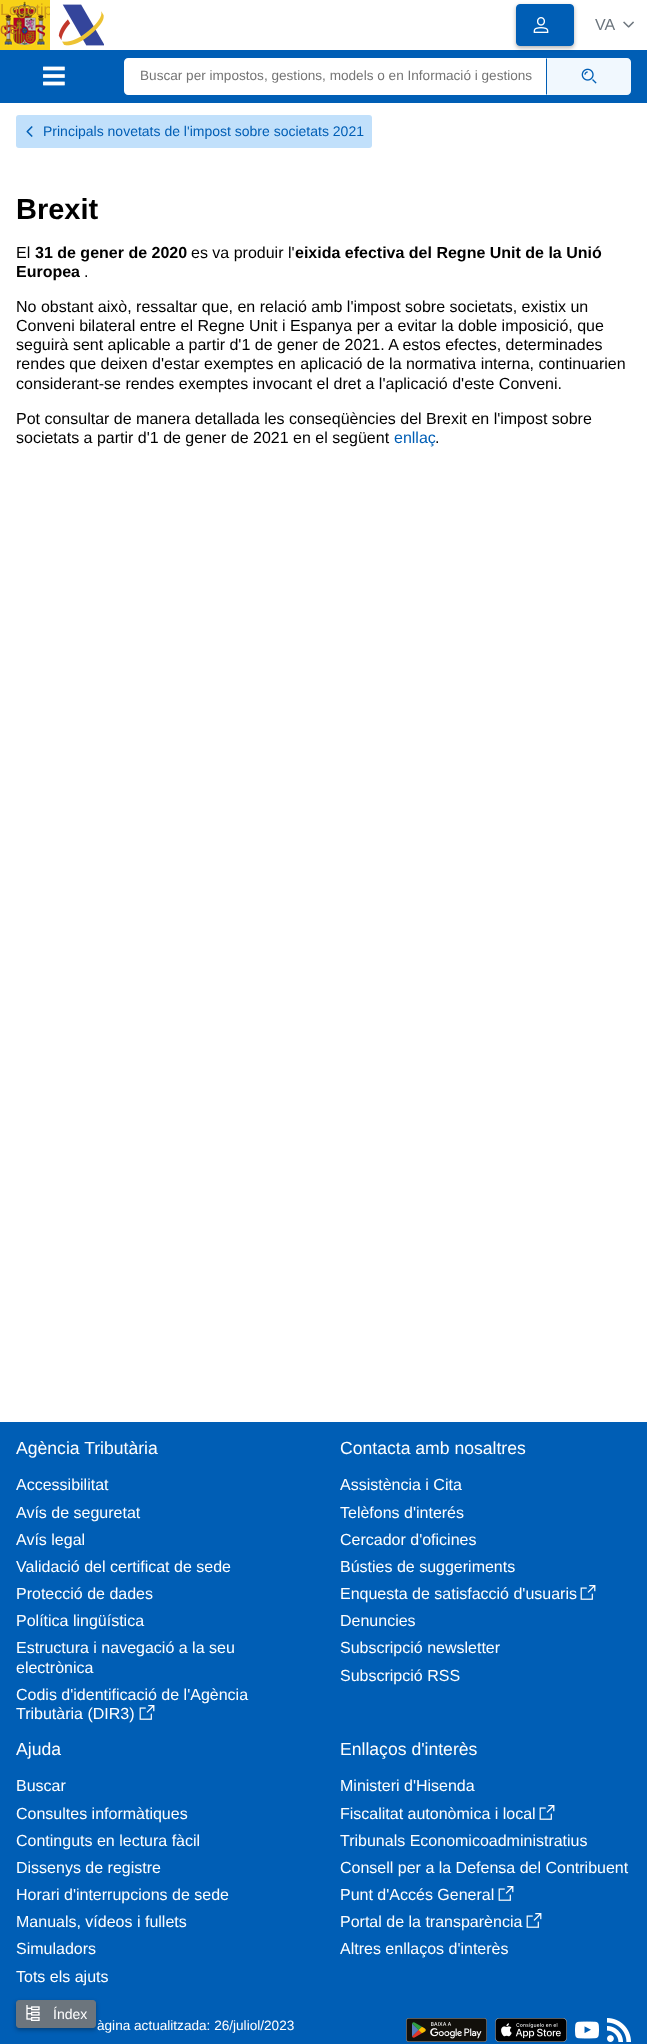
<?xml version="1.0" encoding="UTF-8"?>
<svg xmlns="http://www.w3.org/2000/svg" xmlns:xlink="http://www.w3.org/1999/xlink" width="647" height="2044">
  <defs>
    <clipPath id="clip1"><rect width="50" height="50" /></clipPath>
  </defs>
  <rect width="100%" height="100%" fill="#ffffff" />
  <image x="0" y="0" width="50" height="50" xlink:href="image1.png" />
  <image x="58" y="4" width="46" height="42" xlink:href="image2.png" />
  <rect y="50" width="647" height="53" fill="#005eb5" />
  <rect x="516" y="6" width="58" height="42" rx="4" fill="#000000" fill-opacity="0.3" filter="blur(2px)" />
  <rect x="516.5" y="4.5" width="57" height="41" rx="3.5" fill="#005eb5" stroke="#005eb5" />
  <image x="533" y="17" width="16" height="16" xlink:href="image3.png" />
  <image x="623" y="21" width="11" height="7" xlink:href="image4.png" />
  <image x="43" y="66" width="22" height="20" xlink:href="image5.png" />
  <path d="M 128 58 h 419 v 37 h -419 c -2 0 -4 -2 -4 -4 v -29 c 0 -2 2 -4 4 -4 z" fill="#ffffff" />
  <path d="M 546 58 h 81 c 2 0 4 2 4 4 v 29 c 0 2 -2 4 -4 4 h -81 z" fill="#f1f8fe" />
  <path d="M 546 58 v 37 l 1 -1 v -35 z" fill="#005eb5" />
  <image x="581" y="68" width="16" height="16" xlink:href="image6.png" />
  <rect x="16" y="115" width="356" height="33" rx="3" fill="#c1e0fb" />
  <image x="26" y="126" width="7" height="11" xlink:href="image7.png" />
  <rect y="1422" width="647" height="622" fill="#005eb5" />
  <rect x="16" y="2002" width="80" height="28" rx="3" fill="#000000" fill-opacity="0.3" filter="blur(2px)" />
  <rect x="16.5" y="2000.5" width="79" height="27" rx="2.5" fill="#6c757d" stroke="#6c757d" />
  <image x="26" y="2005" width="14" height="16" xlink:href="image8.png" />
  <image x="139" y="1705" width="16" height="15" xlink:href="image9.png" />
  <image x="580" y="1585" width="16" height="15" xlink:href="image9.png" />
  <image x="539" y="1805" width="16" height="15" xlink:href="image9.png" />
  <image x="498" y="1886" width="16" height="15" xlink:href="image9.png" />
  <image x="526" y="1913" width="16" height="15" xlink:href="image9.png" />
  <image x="406" y="2018" width="81" height="24" xlink:href="image10.png" />
  <image x="495" y="2018" width="72" height="24" xlink:href="image11.png" />
  <image x="575" y="2021" width="24" height="18" xlink:href="image12.png" />
  <image x="607" y="2018" width="24" height="24" xlink:href="image13.png" />
  <g clip-path="url(#clip1)">
    <text x="0" y="15" style="font-family: Liberation Sans; font-size: 16px; fill: #d09b19">Logotip</text>
  </g>
  <text x="0" y="34" style="font-family: Liberation Sans; font-size: 16px; fill: #b96e27">del</text>
  <text x="595" y="30" style="font-family: Liberation Sans; font-size: 16px; fill: #6c757d">VA</text>
  <text x="140" y="80" style="font-family: Liberation Sans; font-size: 13.6px; fill: #757575">Buscar per impostos, gestions, models o en Informació i gestions</text>
  <text x="43" y="136" style="font-family: Liberation Sans; font-size: 14px; fill: #005eb5">Principals novetats de l'impost sobre societats 2021</text>
  <text x="16" y="219" style="font-family: Liberation Sans; font-size: 29px; font-weight: bold; fill: #000000">Brexit</text>
  <text x="16" y="258" style="font-family: Liberation Sans; font-size: 16px; fill: #000000">El</text>
  <text x="35" y="258" style="font-family: Liberation Sans; font-size: 16px; font-weight: bold; fill: #000000">31 de gener de 2020</text>
  <text x="191" y="258" style="font-family: Liberation Sans; font-size: 16px; fill: #000000">es va produir l'</text>
  <text x="295" y="258" style="font-family: Liberation Sans; font-size: 16px; font-weight: bold; fill: #000000">eixida efectiva del Regne Unit de la Unió</text>
  <text x="16" y="277" style="font-family: Liberation Sans; font-size: 16px; font-weight: bold; fill: #000000">Europea</text>
  <text x="84" y="277" style="font-family: Liberation Sans; font-size: 16px; fill: #000000">.</text>
  <text x="16" y="312" style="font-family: Liberation Sans; font-size: 16px; fill: #000000">No obstant això, ressaltar que, en relació amb l'impost sobre societats, existix un</text>
  <text x="16" y="331" style="font-family: Liberation Sans; font-size: 16px; fill: #000000">Conveni bilateral entre el Regne Unit i Espanya per a evitar la doble imposició, que</text>
  <text x="16" y="350" style="font-family: Liberation Sans; font-size: 16px; fill: #000000">seguirà sent aplicable a partir d'1 de gener de 2021. A estos efectes, determinades</text>
  <text x="16" y="369" style="font-family: Liberation Sans; font-size: 16px; fill: #000000">rendes que deixen d'estar exemptes en aplicació de la normativa interna, continuarien</text>
  <text x="16" y="389" style="font-family: Liberation Sans; font-size: 16px; fill: #000000">considerant-se rendes exemptes invocant el dret a l'aplicació d'este Conveni.</text>
  <text x="16" y="424" style="font-family: Liberation Sans; font-size: 16px; fill: #000000">Pot consultar de manera detallada les conseqüències del Brexit en l'impost sobre</text>
  <text x="16" y="443" style="font-family: Liberation Sans; font-size: 16px; fill: #000000">societats a partir d'1 de gener de 2021 en el següent</text>
  <text x="394" y="443" style="font-family: Liberation Sans; font-size: 16px; fill: #005eb5">enllaç</text>
  <text x="435" y="443" style="font-family: Liberation Sans; font-size: 16px; fill: #000000">.</text>
  <text x="53" y="2019" style="font-family: Liberation Sans; font-size: 14px; fill: #ffffff">Índex</text>
  <text x="16" y="1454" style="font-family: Liberation Sans; font-size: 17.6px; fill: #ffffff">Agència Tributària</text>
  <text x="16" y="1490" style="font-family: Liberation Sans; font-size: 16px; fill: #ffffff">Accessibilitat</text>
  <text x="16" y="1518" style="font-family: Liberation Sans; font-size: 16px; fill: #ffffff">Avís de seguretat</text>
  <text x="16" y="1545" style="font-family: Liberation Sans; font-size: 16px; fill: #ffffff">Avís legal</text>
  <text x="16" y="1572" style="font-family: Liberation Sans; font-size: 16px; fill: #ffffff">Validació del certificat de sede</text>
  <text x="16" y="1599" style="font-family: Liberation Sans; font-size: 16px; fill: #ffffff">Protecció de dades</text>
  <text x="16" y="1626" style="font-family: Liberation Sans; font-size: 16px; fill: #ffffff">Política lingüística</text>
  <text x="16" y="1653" style="font-family: Liberation Sans; font-size: 16px; fill: #ffffff">Estructura i navegació a la seu</text>
  <text x="16" y="1673" style="font-family: Liberation Sans; font-size: 16px; fill: #ffffff">electrònica</text>
  <text x="16" y="1700" style="font-family: Liberation Sans; font-size: 16px; fill: #ffffff">Codis d'identificació de l'Agència</text>
  <text x="16" y="1719" style="font-family: Liberation Sans; font-size: 16px; fill: #ffffff">Tributària (DIR3)</text>
  <text x="340" y="1454" style="font-family: Liberation Sans; font-size: 17.6px; fill: #ffffff">Contacta amb nosaltres</text>
  <text x="340" y="1490" style="font-family: Liberation Sans; font-size: 16px; fill: #ffffff">Assistència i Cita</text>
  <text x="340" y="1518" style="font-family: Liberation Sans; font-size: 16px; fill: #ffffff">Telèfons d'interés</text>
  <text x="340" y="1545" style="font-family: Liberation Sans; font-size: 16px; fill: #ffffff">Cercador d'oficines</text>
  <text x="340" y="1572" style="font-family: Liberation Sans; font-size: 16px; fill: #ffffff">Bústies de suggeriments</text>
  <text x="340" y="1599" style="font-family: Liberation Sans; font-size: 16px; fill: #ffffff">Enquesta de satisfacció d'usuaris</text>
  <text x="340" y="1626" style="font-family: Liberation Sans; font-size: 16px; fill: #ffffff">Denuncies</text>
  <text x="340" y="1653" style="font-family: Liberation Sans; font-size: 16px; fill: #ffffff">Subscripció newsletter</text>
  <text x="340" y="1681" style="font-family: Liberation Sans; font-size: 16px; fill: #ffffff">Subscripció RSS</text>
  <text x="16" y="1755" style="font-family: Liberation Sans; font-size: 17.6px; fill: #ffffff">Ajuda</text>
  <text x="16" y="1791" style="font-family: Liberation Sans; font-size: 16px; fill: #ffffff">Buscar</text>
  <text x="16" y="1819" style="font-family: Liberation Sans; font-size: 16px; fill: #ffffff">Consultes informàtiques</text>
  <text x="16" y="1846" style="font-family: Liberation Sans; font-size: 16px; fill: #ffffff">Continguts en lectura fàcil</text>
  <text x="16" y="1873" style="font-family: Liberation Sans; font-size: 16px; fill: #ffffff">Dissenys de registre</text>
  <text x="16" y="1900" style="font-family: Liberation Sans; font-size: 16px; fill: #ffffff">Horari d'interrupcions de sede</text>
  <text x="16" y="1927" style="font-family: Liberation Sans; font-size: 16px; fill: #ffffff">Manuals, vídeos i fullets</text>
  <text x="16" y="1954" style="font-family: Liberation Sans; font-size: 16px; fill: #ffffff">Simuladors</text>
  <text x="16" y="1982" style="font-family: Liberation Sans; font-size: 16px; fill: #ffffff">Tots els ajuts</text>
  <text x="340" y="1755" style="font-family: Liberation Sans; font-size: 17.6px; fill: #ffffff">Enllaços d'interès</text>
  <text x="340" y="1791" style="font-family: Liberation Sans; font-size: 16px; fill: #ffffff">Ministeri d'Hisenda</text>
  <text x="340" y="1819" style="font-family: Liberation Sans; font-size: 16px; fill: #ffffff">Fiscalitat autonòmica i local</text>
  <text x="340" y="1846" style="font-family: Liberation Sans; font-size: 16px; fill: #ffffff">Tribunals Economicoadministratius</text>
  <text x="340" y="1873" style="font-family: Liberation Sans; font-size: 16px; fill: #ffffff">Consell per a la Defensa del Contribuent</text>
  <text x="340" y="1900" style="font-family: Liberation Sans; font-size: 16px; fill: #ffffff">Punt d'Accés General</text>
  <text x="340" y="1927" style="font-family: Liberation Sans; font-size: 16px; fill: #ffffff">Portal de la transparència</text>
  <text x="340" y="1954" style="font-family: Liberation Sans; font-size: 16px; fill: #ffffff">Altres enllaços d'interès</text>
  <text x="97" y="2030" style="font-family: Liberation Sans; font-size: 13.6px; fill: #ffffff">àgina actualitzada: 26/juliol/2023</text>
</svg>
